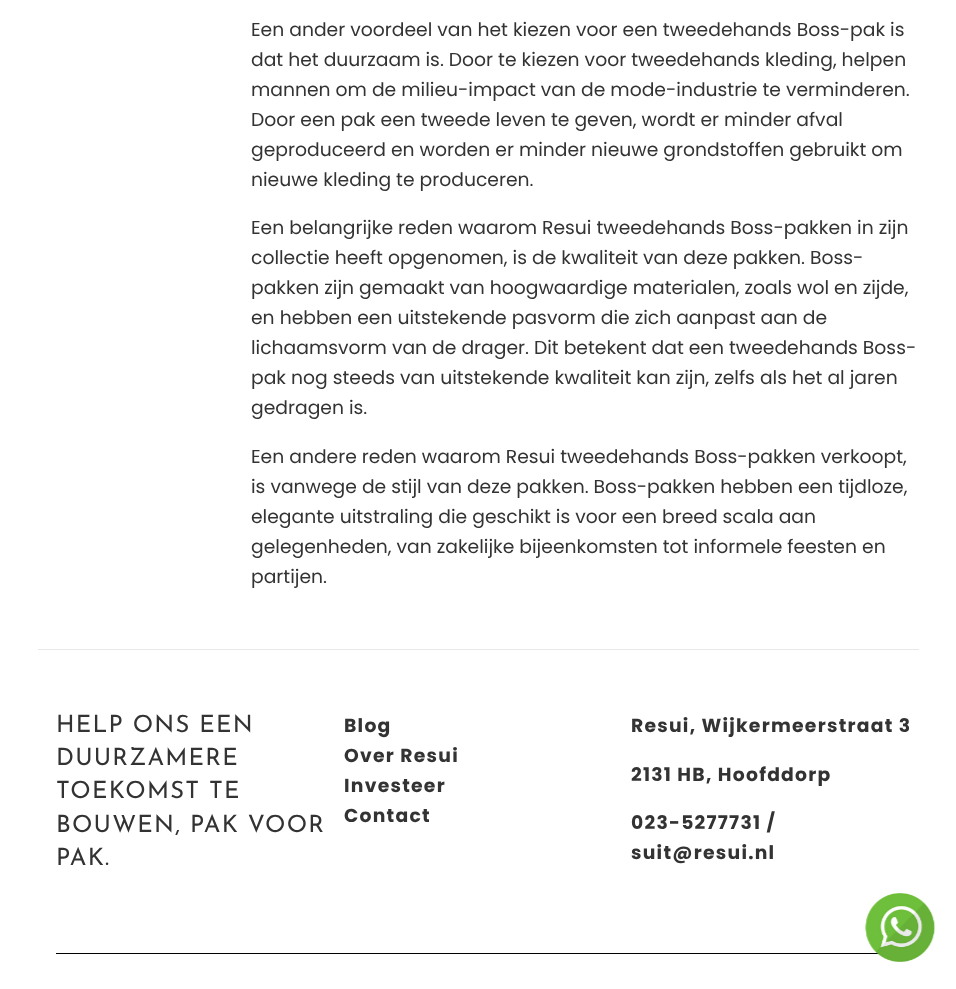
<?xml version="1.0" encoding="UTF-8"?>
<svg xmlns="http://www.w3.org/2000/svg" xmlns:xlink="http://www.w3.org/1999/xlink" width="956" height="989">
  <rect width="100%" height="100%" fill="#ffffff" />
  <rect x="38" y="649" width="881" height="1" fill="#e8e8e8" />
  <rect x="56" y="953" width="823" height="1" fill="#000000" />
  <image x="865" y="893" width="71" height="69" xlink:href="image1.png" />
  <text x="251" y="36" style="font-family: Poppins; font-size: 18.75px; fill: #333333">Een ander voordeel van het kiezen voor een tweedehands Boss-pak is</text>
  <text x="251" y="66" style="font-family: Poppins; font-size: 18.75px; fill: #333333">dat het duurzaam is. Door te kiezen voor tweedehands kleding, helpen</text>
  <text x="251" y="96" style="font-family: Poppins; font-size: 18.75px; fill: #333333">mannen om de milieu-impact van de mode-industrie te verminderen.</text>
  <text x="251" y="126" style="font-family: Poppins; font-size: 18.75px; fill: #333333">Door een pak een tweede leven te geven, wordt er minder afval</text>
  <text x="251" y="156" style="font-family: Poppins; font-size: 18.75px; fill: #333333">geproduceerd en worden er minder nieuwe grondstoffen gebruikt om</text>
  <text x="251" y="186" style="font-family: Poppins; font-size: 18.75px; fill: #333333">nieuwe kleding te produceren.</text>
  <text x="251" y="234" style="font-family: Poppins; font-size: 18.75px; fill: #333333">Een belangrijke reden waarom Resui tweedehands Boss-pakken in zijn</text>
  <text x="251" y="264" style="font-family: Poppins; font-size: 18.75px; fill: #333333">collectie heeft opgenomen, is de kwaliteit van deze pakken. Boss-</text>
  <text x="251" y="294" style="font-family: Poppins; font-size: 18.75px; fill: #333333">pakken zijn gemaakt van hoogwaardige materialen, zoals wol en zijde,</text>
  <text x="251" y="324" style="font-family: Poppins; font-size: 18.75px; fill: #333333">en hebben een uitstekende pasvorm die zich aanpast aan de</text>
  <text x="251" y="354" style="font-family: Poppins; font-size: 18.75px; fill: #333333">lichaamsvorm van de drager. Dit betekent dat een tweedehands Boss-</text>
  <text x="251" y="384" style="font-family: Poppins; font-size: 18.75px; fill: #333333">pak nog steeds van uitstekende kwaliteit kan zijn, zelfs als het al jaren</text>
  <text x="251" y="414" style="font-family: Poppins; font-size: 18.75px; fill: #333333">gedragen is.</text>
  <text x="251" y="463" style="font-family: Poppins; font-size: 18.75px; fill: #333333">Een andere reden waarom Resui tweedehands Boss-pakken verkoopt,</text>
  <text x="251" y="493" style="font-family: Poppins; font-size: 18.75px; fill: #333333">is vanwege de stijl van deze pakken. Boss-pakken hebben een tijdloze,</text>
  <text x="251" y="523" style="font-family: Poppins; font-size: 18.75px; fill: #333333">elegante uitstraling die geschikt is voor een breed scala aan</text>
  <text x="251" y="553" style="font-family: Poppins; font-size: 18.75px; fill: #333333">gelegenheden, van zakelijke bijeenkomsten tot informele feesten en</text>
  <text x="251" y="583" style="font-family: Poppins; font-size: 18.75px; fill: #333333">partijen.</text>
  <text x="56" y="732" style="font-family: Josefin Sans; font-size: 23.75px; letter-spacing: 1.25px; fill: #333333">HELP ONS EEN</text>
  <text x="56" y="765" style="font-family: Josefin Sans; font-size: 23.75px; letter-spacing: 1.25px; fill: #333333">DUURZAMERE</text>
  <text x="56" y="798" style="font-family: Josefin Sans; font-size: 23.75px; letter-spacing: 1.25px; fill: #333333">TOEKOMST TE</text>
  <text x="56" y="832" style="font-family: Josefin Sans; font-size: 23.75px; letter-spacing: 1.25px; fill: #333333">BOUWEN, PAK VOOR</text>
  <text x="56" y="865" style="font-family: Josefin Sans; font-size: 23.75px; letter-spacing: 1.25px; fill: #333333">PAK.</text>
  <text x="344" y="732" style="font-family: Poppins; font-size: 18.75px; font-weight: bold; letter-spacing: 1.25px; fill: #333333">Blog</text>
  <text x="344" y="762" style="font-family: Poppins; font-size: 18.75px; font-weight: bold; letter-spacing: 1.25px; fill: #333333">Over Resui</text>
  <text x="344" y="792" style="font-family: Poppins; font-size: 18.75px; font-weight: bold; letter-spacing: 1.25px; fill: #333333">Investeer</text>
  <text x="344" y="822" style="font-family: Poppins; font-size: 18.75px; font-weight: bold; letter-spacing: 1.25px; fill: #333333">Contact</text>
  <text x="631" y="732" style="font-family: Poppins; font-size: 18.75px; font-weight: bold; letter-spacing: 1.25px; fill: #333333">Resui, Wijkermeerstraat 3</text>
  <text x="631" y="781" style="font-family: Poppins; font-size: 18.75px; font-weight: bold; letter-spacing: 1.25px; fill: #333333">2131 HB, Hoofddorp</text>
  <text x="631" y="829" style="font-family: Poppins; font-size: 18.75px; font-weight: bold; letter-spacing: 1.25px; fill: #333333">023-5277731 /</text>
  <text x="631" y="859" style="font-family: Poppins; font-size: 18.75px; font-weight: bold; letter-spacing: 1.25px; fill: #333333">suit@resui.nl</text>
</svg>
